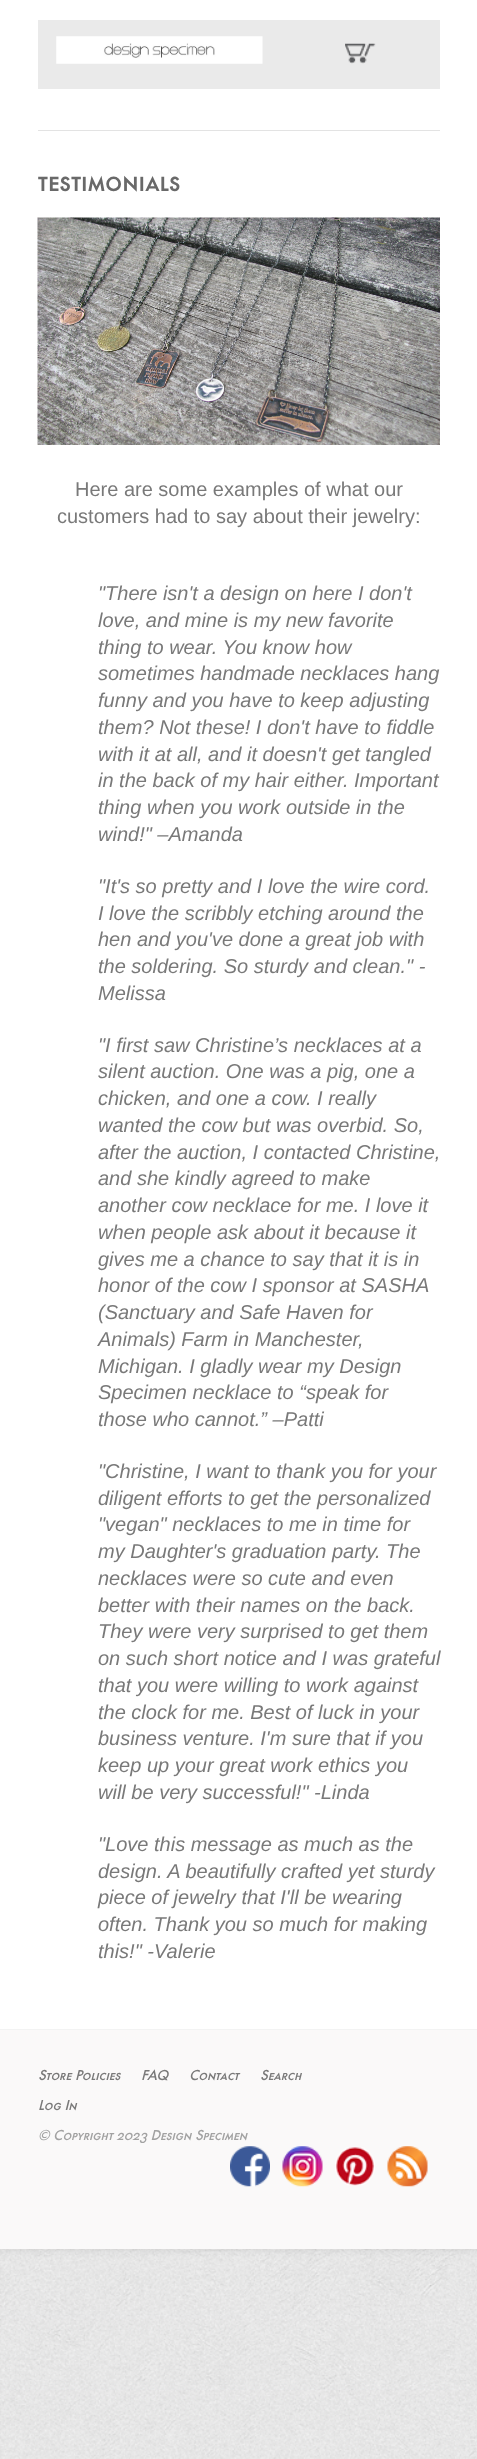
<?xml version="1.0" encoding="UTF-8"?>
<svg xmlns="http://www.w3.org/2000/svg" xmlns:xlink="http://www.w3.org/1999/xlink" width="477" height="2459">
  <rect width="100%" height="100%" fill="#ffffff" />
  <image x="0" y="2249" width="477" height="210" xlink:href="image1.png" />
  <rect width="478" height="2249" fill="#000000" fill-opacity="0.1" filter="blur(4px)" />
  <rect width="477" height="2029" fill="#ffffff" />
  <rect x="38" y="130" width="402" height="1" fill="#e3e3e3" />
  <rect x="38" y="20" width="402" height="69" fill="#eaeaea" />
  <image x="56" y="36" width="207" height="28" xlink:href="image2.png" />
  <image x="345" y="43" width="31" height="21" xlink:href="image3.png" />
  <image x="37" y="217" width="403" height="228" xlink:href="image4.png" />
  <rect y="2030" width="477" height="219" fill="#faf9f9" />
  <rect y="2029" width="477" height="1" fill="#f3f3f3" />
  <image x="230" y="2146" width="40" height="41" xlink:href="image5.png" />
  <image x="282" y="2146" width="41" height="41" xlink:href="image6.png" />
  <image x="335" y="2147" width="40" height="39" xlink:href="image7.png" />
  <image x="387" y="2146" width="41" height="41" xlink:href="image8.png" />
  <text x="38" y="191" style="font-family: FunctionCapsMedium; font-size: 30px; font-weight: 500; fill: #696969">testimonials</text>
  <text x="75" y="496" style="font-family: Liberation Sans; font-size: 20px; fill: #797979">Here are some examples of what our</text>
  <text x="57" y="523" style="font-family: Liberation Sans; font-size: 20px; fill: #797979">customers had to say about their jewelry:</text>
  <text x="98" y="600" style="font-family: Liberation Sans; font-size: 20px; font-style: italic; fill: #797979">"There isn't a design on here I don't</text>
  <text x="98" y="627" style="font-family: Liberation Sans; font-size: 20px; font-style: italic; fill: #797979">love, and mine is my new favorite</text>
  <text x="98" y="654" style="font-family: Liberation Sans; font-size: 20px; font-style: italic; fill: #797979">thing to wear. You know how</text>
  <text x="98" y="680" style="font-family: Liberation Sans; font-size: 20px; font-style: italic; fill: #797979">sometimes handmade necklaces hang</text>
  <text x="98" y="707" style="font-family: Liberation Sans; font-size: 20px; font-style: italic; fill: #797979">funny and you have to keep adjusting</text>
  <text x="98" y="734" style="font-family: Liberation Sans; font-size: 20px; font-style: italic; fill: #797979">them? Not these! I don't have to fiddle</text>
  <text x="98" y="761" style="font-family: Liberation Sans; font-size: 20px; font-style: italic; fill: #797979">with it at all, and it doesn't get tangled</text>
  <text x="98" y="787" style="font-family: Liberation Sans; font-size: 20px; font-style: italic; fill: #797979">in the back of my hair either. Important</text>
  <text x="98" y="814" style="font-family: Liberation Sans; font-size: 20px; font-style: italic; fill: #797979">thing when you work outside in the</text>
  <text x="98" y="841" style="font-family: Liberation Sans; font-size: 20px; font-style: italic; fill: #797979">wind!" –Amanda</text>
  <text x="98" y="893" style="font-family: Liberation Sans; font-size: 20px; font-style: italic; fill: #797979">"It's so pretty and I love the wire cord.</text>
  <text x="98" y="920" style="font-family: Liberation Sans; font-size: 20px; font-style: italic; fill: #797979">I love the scribbly etching around the</text>
  <text x="98" y="946" style="font-family: Liberation Sans; font-size: 20px; font-style: italic; fill: #797979">hen and you've done a great job with</text>
  <text x="98" y="973" style="font-family: Liberation Sans; font-size: 20px; font-style: italic; fill: #797979">the soldering. So sturdy and clean." -</text>
  <text x="98" y="1000" style="font-family: Liberation Sans; font-size: 20px; font-style: italic; fill: #797979">Melissa</text>
  <text x="98" y="1052" style="font-family: Liberation Sans; font-size: 20px; font-style: italic; fill: #797979">"I first saw Christine’s necklaces at a</text>
  <text x="98" y="1078" style="font-family: Liberation Sans; font-size: 20px; font-style: italic; fill: #797979">silent auction. One was a pig, one a</text>
  <text x="98" y="1105" style="font-family: Liberation Sans; font-size: 20px; font-style: italic; fill: #797979">chicken, and one a cow. I really</text>
  <text x="98" y="1132" style="font-family: Liberation Sans; font-size: 20px; font-style: italic; fill: #797979">wanted the cow but was overbid. So,</text>
  <text x="98" y="1159" style="font-family: Liberation Sans; font-size: 20px; font-style: italic; fill: #797979">after the auction, I contacted Christine,</text>
  <text x="98" y="1185" style="font-family: Liberation Sans; font-size: 20px; font-style: italic; fill: #797979">and she kindly agreed to make</text>
  <text x="98" y="1212" style="font-family: Liberation Sans; font-size: 20px; font-style: italic; fill: #797979">another cow necklace for me. I love it</text>
  <text x="98" y="1239" style="font-family: Liberation Sans; font-size: 20px; font-style: italic; fill: #797979">when people ask about it because it</text>
  <text x="98" y="1266" style="font-family: Liberation Sans; font-size: 20px; font-style: italic; fill: #797979">gives me a chance to say that it is in</text>
  <text x="98" y="1292" style="font-family: Liberation Sans; font-size: 20px; font-style: italic; fill: #797979">honor of the cow I sponsor at SASHA</text>
  <text x="98" y="1319" style="font-family: Liberation Sans; font-size: 20px; font-style: italic; fill: #797979">(Sanctuary and Safe Haven for</text>
  <text x="98" y="1346" style="font-family: Liberation Sans; font-size: 20px; font-style: italic; fill: #797979">Animals) Farm in Manchester,</text>
  <text x="98" y="1373" style="font-family: Liberation Sans; font-size: 20px; font-style: italic; fill: #797979">Michigan. I gladly wear my Design</text>
  <text x="98" y="1399" style="font-family: Liberation Sans; font-size: 20px; font-style: italic; fill: #797979">Specimen necklace to “speak for</text>
  <text x="98" y="1426" style="font-family: Liberation Sans; font-size: 20px; font-style: italic; fill: #797979">those who cannot.” –Patti</text>
  <text x="98" y="1478" style="font-family: Liberation Sans; font-size: 20px; font-style: italic; fill: #797979">"Christine, I want to thank you for your</text>
  <text x="98" y="1505" style="font-family: Liberation Sans; font-size: 20px; font-style: italic; fill: #797979">diligent efforts to get the personalized</text>
  <text x="98" y="1531" style="font-family: Liberation Sans; font-size: 20px; font-style: italic; fill: #797979">"vegan" necklaces to me in time for</text>
  <text x="98" y="1558" style="font-family: Liberation Sans; font-size: 20px; font-style: italic; fill: #797979">my Daughter's graduation party. The</text>
  <text x="98" y="1585" style="font-family: Liberation Sans; font-size: 20px; font-style: italic; fill: #797979">necklaces were so cute and even</text>
  <text x="98" y="1612" style="font-family: Liberation Sans; font-size: 20px; font-style: italic; fill: #797979">better with their names on the back.</text>
  <text x="98" y="1638" style="font-family: Liberation Sans; font-size: 20px; font-style: italic; fill: #797979">They were very surprised to get them</text>
  <text x="98" y="1665" style="font-family: Liberation Sans; font-size: 20px; font-style: italic; fill: #797979">on such short notice and I was grateful</text>
  <text x="98" y="1692" style="font-family: Liberation Sans; font-size: 20px; font-style: italic; fill: #797979">that you were willing to work against</text>
  <text x="98" y="1719" style="font-family: Liberation Sans; font-size: 20px; font-style: italic; fill: #797979">the clock for me. Best of luck in your</text>
  <text x="98" y="1745" style="font-family: Liberation Sans; font-size: 20px; font-style: italic; fill: #797979">business venture. I'm sure that if you</text>
  <text x="98" y="1772" style="font-family: Liberation Sans; font-size: 20px; font-style: italic; fill: #797979">keep up your great work ethics you</text>
  <text x="98" y="1799" style="font-family: Liberation Sans; font-size: 20px; font-style: italic; fill: #797979">will be very successful!" -Linda</text>
  <text x="98" y="1851" style="font-family: Liberation Sans; font-size: 20px; font-style: italic; fill: #797979">"Love this message as much as the</text>
  <text x="98" y="1878" style="font-family: Liberation Sans; font-size: 20px; font-style: italic; fill: #797979">design. A beautifully crafted yet sturdy</text>
  <text x="98" y="1904" style="font-family: Liberation Sans; font-size: 20px; font-style: italic; fill: #797979">piece of jewelry that I'll be wearing</text>
  <text x="98" y="1931" style="font-family: Liberation Sans; font-size: 20px; font-style: italic; fill: #797979">often. Thank you so much for making</text>
  <text x="98" y="1958" style="font-family: Liberation Sans; font-size: 20px; font-style: italic; fill: #797979">this!" -Valerie</text>
  <text x="38" y="2080" style="font-family: FunctionCapsMedium; font-size: 15px; font-weight: 500; font-style: italic; fill: #797979">Store Policies</text>
  <text x="141" y="2080" style="font-family: FunctionCapsMedium; font-size: 15px; font-weight: 500; font-style: italic; fill: #797979">FAQ</text>
  <text x="189" y="2080" style="font-family: FunctionCapsMedium; font-size: 15px; font-weight: 500; font-style: italic; fill: #797979">Contact</text>
  <text x="260" y="2080" style="font-family: FunctionCapsMedium; font-size: 15px; font-weight: 500; font-style: italic; fill: #797979">Search</text>
  <text x="38" y="2110" style="font-family: FunctionCapsMedium; font-size: 15px; font-weight: 500; font-style: italic; fill: #797979">Log In</text>
  <text x="38" y="2140" style="font-family: FunctionCapsMedium; font-size: 15px; font-weight: 500; font-style: italic; fill: #a2a2a2">© Copyright 2023 Design Specimen</text>
</svg>
